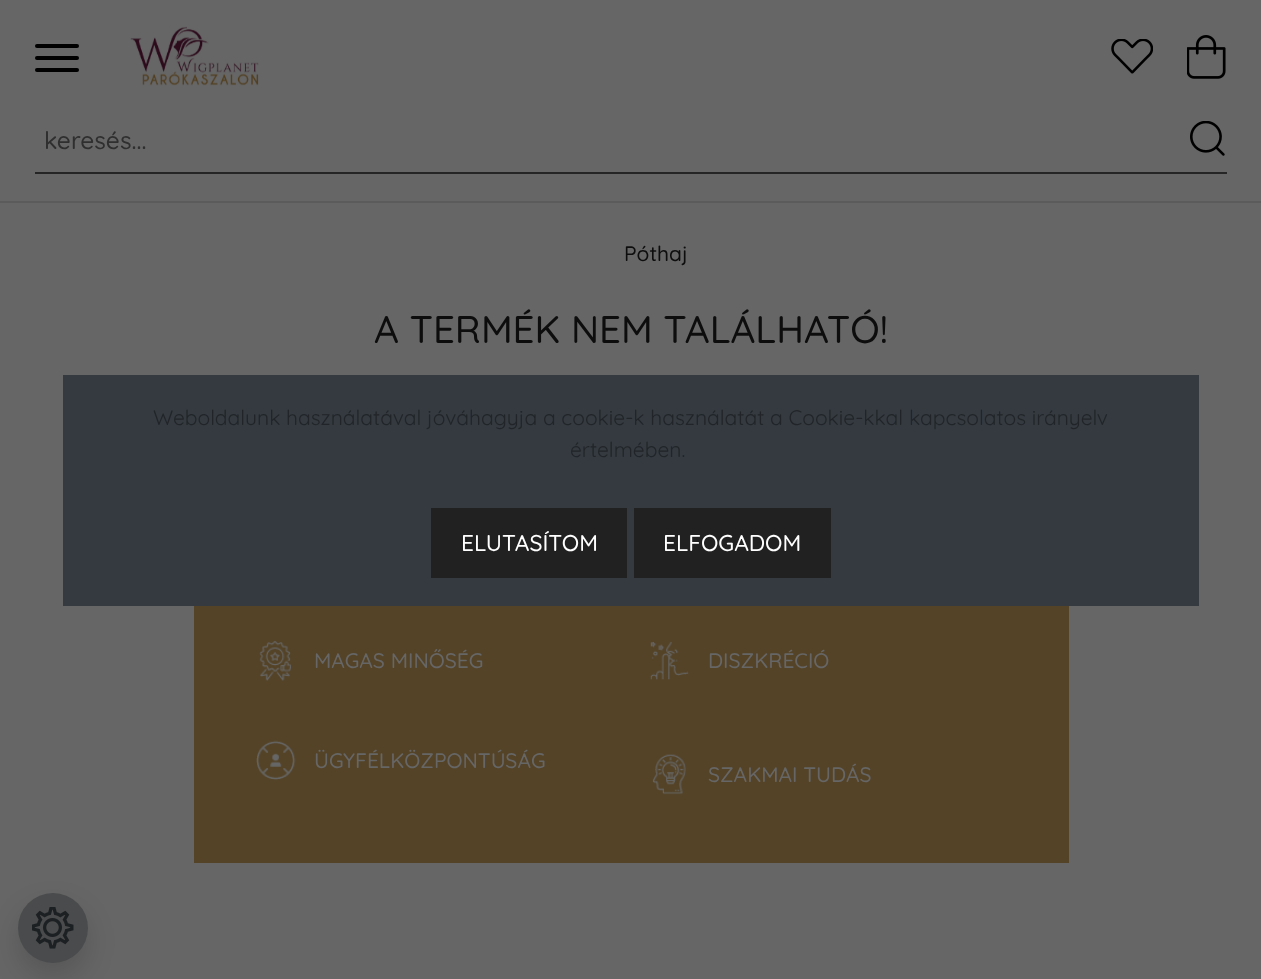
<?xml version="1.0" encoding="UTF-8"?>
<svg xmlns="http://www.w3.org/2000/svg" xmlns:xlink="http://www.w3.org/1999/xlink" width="1261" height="979">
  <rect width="100%" height="100%" fill="#666666" />
  <rect x="35" y="44" width="44" height="4" rx="2" fill="#000000" />
  <rect x="35" y="56" width="44" height="4" rx="2" fill="#000000" />
  <rect x="35" y="68" width="44" height="4" rx="2" fill="#000000" />
  <image x="130" y="26" width="129" height="60" xlink:href="image1.png" />
  <image x="1111" y="39" width="42" height="35" xlink:href="image2.png" />
  <image x="1187" y="35" width="39" height="44" xlink:href="image3.png" />
  <rect x="35" y="172" width="1192" height="2" fill="#252525" />
  <image x="1190" y="121" width="35" height="35" xlink:href="image4.png" />
  <rect y="201" width="1261" height="2" fill="#5b5b5b" />
  <rect x="194" y="606" width="875" height="257" fill="#544327" />
  <image x="259" y="640" width="33" height="41" xlink:href="image5.png" />
  <image x="649" y="641" width="40" height="40" xlink:href="image6.png" />
  <image x="256" y="740" width="40" height="41" xlink:href="image7.png" />
  <image x="652" y="754" width="34" height="41" xlink:href="image8.png" />
  <rect x="18" y="907" width="70" height="70" rx="35" fill="#000000" fill-opacity="0.15" filter="blur(14px)" />
  <circle cx="53" cy="928" r="35" fill="#4a4b4c" />
  <image x="32" y="907" width="42" height="42" xlink:href="image9.png" />
  <rect x="63" y="375" width="1136" height="231" fill="#343a40" />
  <rect x="431" y="508" width="196" height="70" fill="#212121" />
  <rect x="634" y="508" width="197" height="70" fill="#212121" />
  <text x="44" y="149" style="font-family: Quicksand; font-size: 24.5px; font-weight: 500; fill: #2f2f2f">keresés...</text>
  <text x="624" y="261" style="font-family: Quicksand; font-size: 21px; font-weight: 500; fill: #0d0d0d">Póthaj</text>
  <text x="374" y="343" style="font-family: Quicksand; font-size: 38.5px; font-weight: 500; fill: #0d0d0d">A TERMÉK NEM TALÁLHATÓ!</text>
  <text x="314" y="668" style="font-family: Quicksand; font-size: 21px; font-weight: 500; fill: #666666">MAGAS MINŐSÉG</text>
  <text x="708" y="668" style="font-family: Quicksand; font-size: 21px; font-weight: 500; fill: #666666">DISZKRÉCIÓ</text>
  <text x="314" y="768" style="font-family: Quicksand; font-size: 21px; font-weight: 500; fill: #666666">ÜGYFÉLKÖZPONTÚSÁG</text>
  <text x="708" y="782" style="font-family: Quicksand; font-size: 21px; font-weight: 500; fill: #666666">SZAKMAI TUDÁS</text>
  <text x="153" y="425" style="font-family: Quicksand; font-size: 21px; fill: #212529">Weboldalunk használatával jóváhagyja a cookie-k használatát a Cookie-kkal kapcsolatos irányelv</text>
  <text x="570" y="457" style="font-family: Quicksand; font-size: 21px; fill: #212529">értelmében.</text>
  <text x="461" y="551" style="font-family: Quicksand; font-size: 22.75px; font-weight: 500; fill: #ffffff">ELUTASÍTOM</text>
  <text x="663" y="551" style="font-family: Quicksand; font-size: 22.75px; font-weight: 500; fill: #ffffff">ELFOGADOM</text>
</svg>
